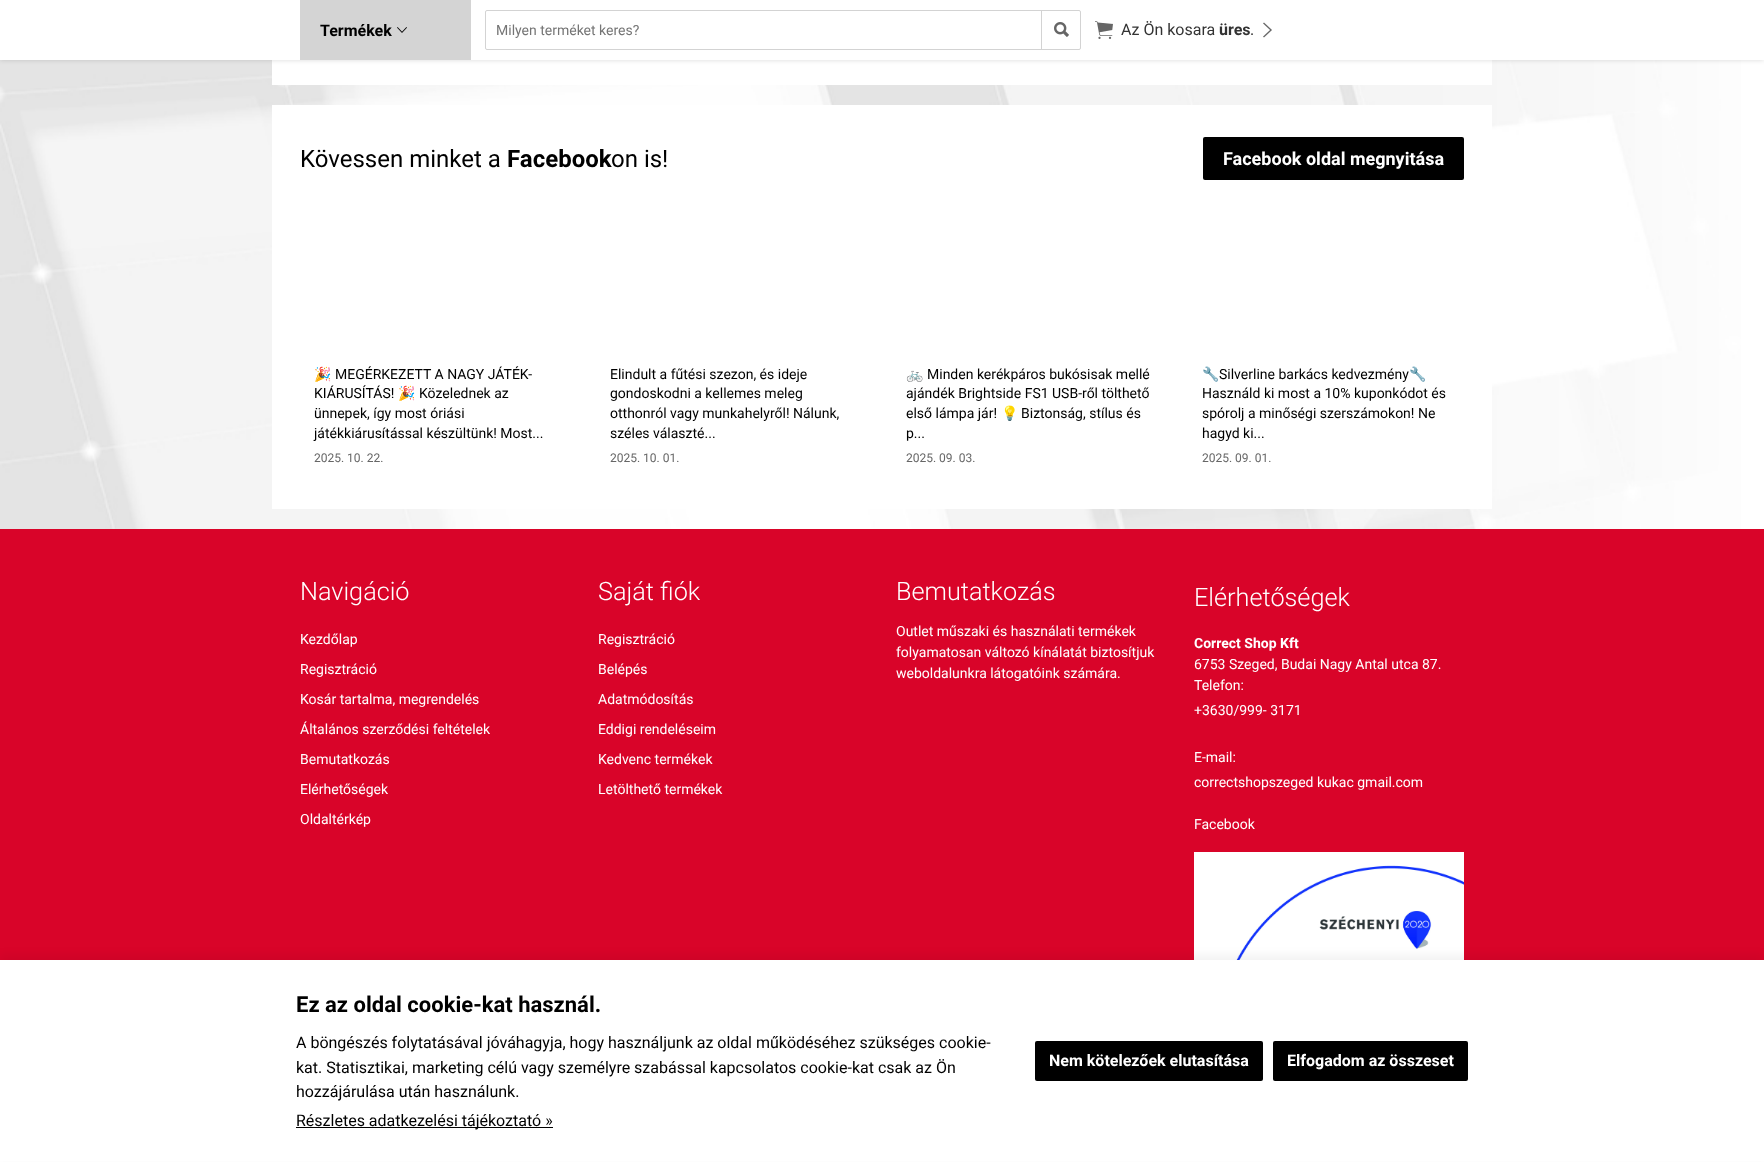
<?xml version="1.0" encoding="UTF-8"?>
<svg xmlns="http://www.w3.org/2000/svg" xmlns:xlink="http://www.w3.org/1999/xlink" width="1764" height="1162">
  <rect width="100%" height="100%" fill="#ffffff" />
  <image x="0" y="60" width="1741" height="469" xlink:href="image1.png" />
  <rect x="272" y="60" width="1220" height="25" fill="#ffffff" />
  <rect width="1764" height="60" fill="#000000" fill-opacity="0.15" filter="blur(2.5px)" />
  <rect width="1764" height="60" fill="#ffffff" />
  <rect x="300" width="171" height="60" fill="#d4d4d4" />
  <image x="397" y="27" width="10" height="6" xlink:href="image2.png" />
  <rect x="485.5" y="10.5" width="595" height="39" rx="1.5" fill="none" stroke="#d3d3d3" />
  <rect x="1041" y="10" width="1" height="40" fill="#d3d3d3" />
  <image x="1054" y="22" width="15" height="15" xlink:href="image3.png" />
  <image x="1095" y="21" width="18" height="18" xlink:href="image4.png" />
  <image x="1263" y="22" width="9" height="16" xlink:href="image5.png" />
  <rect x="272" y="105" width="1220" height="404" fill="#ffffff" />
  <rect x="1203" y="137" width="261" height="43" rx="2" fill="#000000" />
  <rect y="529" width="1764" height="431" fill="#d90429" />
  <image x="1194" y="852" width="270" height="108" xlink:href="image6.png" />
  <rect y="955" width="1764" height="202" fill="#000000" fill-opacity="0.05" filter="blur(5px)" />
  <rect y="960" width="1764" height="201" fill="#ffffff" />
  <rect x="296" y="1127" width="257" height="1" fill="#000000" />
  <rect x="1035" y="1041" width="228" height="40" rx="2" fill="#000000" />
  <rect x="1273" y="1041" width="195" height="40" rx="2" fill="#000000" />
  <text x="320" y="36" style="font-family: Roboto; font-size: 16px; font-weight: bold; fill: #000000">Termékek</text>
  <text x="496" y="35" style="font-family: Roboto; font-size: 14px; fill: #757575">Milyen terméket keres?</text>
  <text x="1121" y="35" style="font-family: Roboto; font-size: 16px; fill: #333333">Az Ön kosara</text>
  <text x="1219" y="35" style="font-family: Roboto; font-size: 16px; font-weight: bold; fill: #333333">üres</text>
  <text x="1250" y="35" style="font-family: Roboto; font-size: 16px; fill: #333333">.</text>
  <text x="300" y="167" style="font-family: Roboto; font-size: 24px; fill: #000000">Kövessen minket a</text>
  <text x="507" y="167" style="font-family: Roboto; font-size: 24px; font-weight: bold; fill: #000000">Facebook</text>
  <text x="611" y="167" style="font-family: Roboto; font-size: 24px; fill: #000000">on is!</text>
  <text x="1223" y="165" style="font-family: Roboto; font-size: 18px; font-weight: bold; fill: #ffffff">Facebook oldal megnyitása</text>
  <text x="314" y="379" style="font-family: Noto Color Emoji; font-size: 14px; fill: #000000">🎉</text>
  <text x="335" y="379" style="font-family: Roboto; font-size: 14px; fill: #000000">MEGÉRKEZETT A NAGY JÁTÉK-</text>
  <text x="314" y="398" style="font-family: Roboto; font-size: 14px; fill: #000000">KIÁRUSÍTÁS!</text>
  <text x="398" y="398" style="font-family: Noto Color Emoji; font-size: 14px; fill: #000000">🎉</text>
  <text x="419" y="398" style="font-family: Roboto; font-size: 14px; fill: #000000">Közelednek az</text>
  <text x="314" y="418" style="font-family: Roboto; font-size: 14px; fill: #000000">ünnepek, így most óriási</text>
  <text x="314" y="438" style="font-family: Roboto; font-size: 14px; fill: #000000">játékkiárusítással készültünk! Most...</text>
  <text x="314" y="462" style="font-family: Roboto; font-size: 12px; fill: #666666">2025. 10. 22.</text>
  <text x="610" y="379" style="font-family: Roboto; font-size: 14px; fill: #000000">Elindult a fűtési szezon, és ideje</text>
  <text x="610" y="398" style="font-family: Roboto; font-size: 14px; fill: #000000">gondoskodni a kellemes meleg</text>
  <text x="610" y="418" style="font-family: Roboto; font-size: 14px; fill: #000000">otthonról vagy munkahelyről! Nálunk,</text>
  <text x="610" y="438" style="font-family: Roboto; font-size: 14px; fill: #000000">széles választé...</text>
  <text x="610" y="462" style="font-family: Roboto; font-size: 12px; fill: #666666">2025. 10. 01.</text>
  <text x="906" y="379" style="font-family: Noto Color Emoji; font-size: 14px; fill: #000000">🚲</text>
  <text x="927" y="379" style="font-family: Roboto; font-size: 14px; fill: #000000">Minden kerékpáros bukósisak mellé</text>
  <text x="906" y="398" style="font-family: Roboto; font-size: 14px; fill: #000000">ajándék Brightside FS1 USB-ről tölthető</text>
  <text x="906" y="418" style="font-family: Roboto; font-size: 14px; fill: #000000">első lámpa jár!</text>
  <text x="1001" y="418" style="font-family: Noto Color Emoji; font-size: 14px; fill: #000000">💡</text>
  <text x="1021" y="418" style="font-family: Roboto; font-size: 14px; fill: #000000">Biztonság, stílus és</text>
  <text x="906" y="438" style="font-family: Roboto; font-size: 14px; fill: #000000">p...</text>
  <text x="906" y="462" style="font-family: Roboto; font-size: 12px; fill: #666666">2025. 09. 03.</text>
  <text x="1202" y="379" style="font-family: Noto Color Emoji; font-size: 14px; fill: #000000">🔧</text>
  <text x="1219" y="379" style="font-family: Roboto; font-size: 14px; fill: #000000">Silverline barkács kedvezmény</text>
  <text x="1409" y="379" style="font-family: Noto Color Emoji; font-size: 14px; fill: #000000">🔧</text>
  <text x="1202" y="398" style="font-family: Roboto; font-size: 14px; fill: #000000">Használd ki most a 10% kuponkódot és</text>
  <text x="1202" y="418" style="font-family: Roboto; font-size: 14px; fill: #000000">spórolj a minőségi szerszámokon! Ne</text>
  <text x="1202" y="438" style="font-family: Roboto; font-size: 14px; fill: #000000">hagyd ki...</text>
  <text x="1202" y="462" style="font-family: Roboto; font-size: 12px; fill: #666666">2025. 09. 01.</text>
  <text x="300" y="600" style="font-family: Roboto; font-size: 25.25px; font-weight: 300; fill: #ffffff">Navigáció</text>
  <text x="300" y="644" style="font-family: Roboto; font-size: 14px; fill: #ffffff">Kezdőlap</text>
  <text x="300" y="674" style="font-family: Roboto; font-size: 14px; fill: #ffffff">Regisztráció</text>
  <text x="300" y="704" style="font-family: Roboto; font-size: 14px; fill: #ffffff">Kosár tartalma, megrendelés</text>
  <text x="300" y="734" style="font-family: Roboto; font-size: 14px; fill: #ffffff">Általános szerződési feltételek</text>
  <text x="300" y="764" style="font-family: Roboto; font-size: 14px; fill: #ffffff">Bemutatkozás</text>
  <text x="300" y="794" style="font-family: Roboto; font-size: 14px; fill: #ffffff">Elérhetőségek</text>
  <text x="300" y="824" style="font-family: Roboto; font-size: 14px; fill: #ffffff">Oldaltérkép</text>
  <text x="598" y="600" style="font-family: Roboto; font-size: 25.25px; font-weight: 300; fill: #ffffff">Saját fiók</text>
  <text x="598" y="644" style="font-family: Roboto; font-size: 14px; fill: #ffffff">Regisztráció</text>
  <text x="598" y="674" style="font-family: Roboto; font-size: 14px; fill: #ffffff">Belépés</text>
  <text x="598" y="704" style="font-family: Roboto; font-size: 14px; fill: #ffffff">Adatmódosítás</text>
  <text x="598" y="734" style="font-family: Roboto; font-size: 14px; fill: #ffffff">Eddigi rendeléseim</text>
  <text x="598" y="764" style="font-family: Roboto; font-size: 14px; fill: #ffffff">Kedvenc termékek</text>
  <text x="598" y="794" style="font-family: Roboto; font-size: 14px; fill: #ffffff">Letölthető termékek</text>
  <text x="896" y="600" style="font-family: Roboto; font-size: 25.25px; font-weight: 300; fill: #ffffff">Bemutatkozás</text>
  <text x="896" y="636" style="font-family: Roboto; font-size: 14px; fill: #ffffff">Outlet műszaki és használati termékek</text>
  <text x="896" y="657" style="font-family: Roboto; font-size: 14px; fill: #ffffff">folyamatosan változó kínálatát biztosítjuk</text>
  <text x="896" y="678" style="font-family: Roboto; font-size: 14px; fill: #ffffff">weboldalunkra látogatóink számára.</text>
  <text x="1194" y="606" style="font-family: Roboto; font-size: 25.25px; font-weight: 300; fill: #ffffff">Elérhetőségek</text>
  <text x="1194" y="648" style="font-family: Roboto; font-size: 14px; font-weight: bold; fill: #ffffff">Correct Shop Kft</text>
  <text x="1194" y="669" style="font-family: Roboto; font-size: 14px; fill: #ffffff">6753 Szeged, Budai Nagy Antal utca 87.</text>
  <text x="1194" y="690" style="font-family: Roboto; font-size: 14px; fill: #ffffff">Telefon:</text>
  <text x="1194" y="715" style="font-family: Roboto; font-size: 14px; fill: #ffffff">+3630/999- 3171</text>
  <text x="1194" y="762" style="font-family: Roboto; font-size: 14px; fill: #ffffff">E-mail:</text>
  <text x="1194" y="787" style="font-family: Roboto; font-size: 14px; fill: #ffffff">correctshopszeged kukac gmail.com</text>
  <text x="1194" y="829" style="font-family: Roboto; font-size: 14px; fill: #ffffff">Facebook</text>
  <text x="296" y="1012" style="font-family: Roboto; font-size: 22px; font-weight: bold; fill: #000000">Ez az oldal cookie-kat használ.</text>
  <text x="296" y="1048" style="font-family: Roboto; font-size: 16px; fill: #000000">A böngészés folytatásával jóváhagyja, hogy használjunk az oldal működéséhez szükséges cookie-</text>
  <text x="296" y="1073" style="font-family: Roboto; font-size: 16px; fill: #000000">kat. Statisztikai, marketing célú vagy személyre szabással kapcsolatos cookie-kat csak az Ön</text>
  <text x="296" y="1097" style="font-family: Roboto; font-size: 16px; fill: #000000">hozzájárulása után használunk.</text>
  <text x="296" y="1126" style="font-family: Roboto; font-size: 16px; fill: #000000">Részletes adatkezelési tájékoztató »</text>
  <text x="1049" y="1066" style="font-family: Roboto; font-size: 16px; font-weight: bold; fill: #ffffff">Nem kötelezőek elutasítása</text>
  <text x="1287" y="1066" style="font-family: Roboto; font-size: 16px; font-weight: bold; fill: #ffffff">Elfogadom az összeset</text>
</svg>
